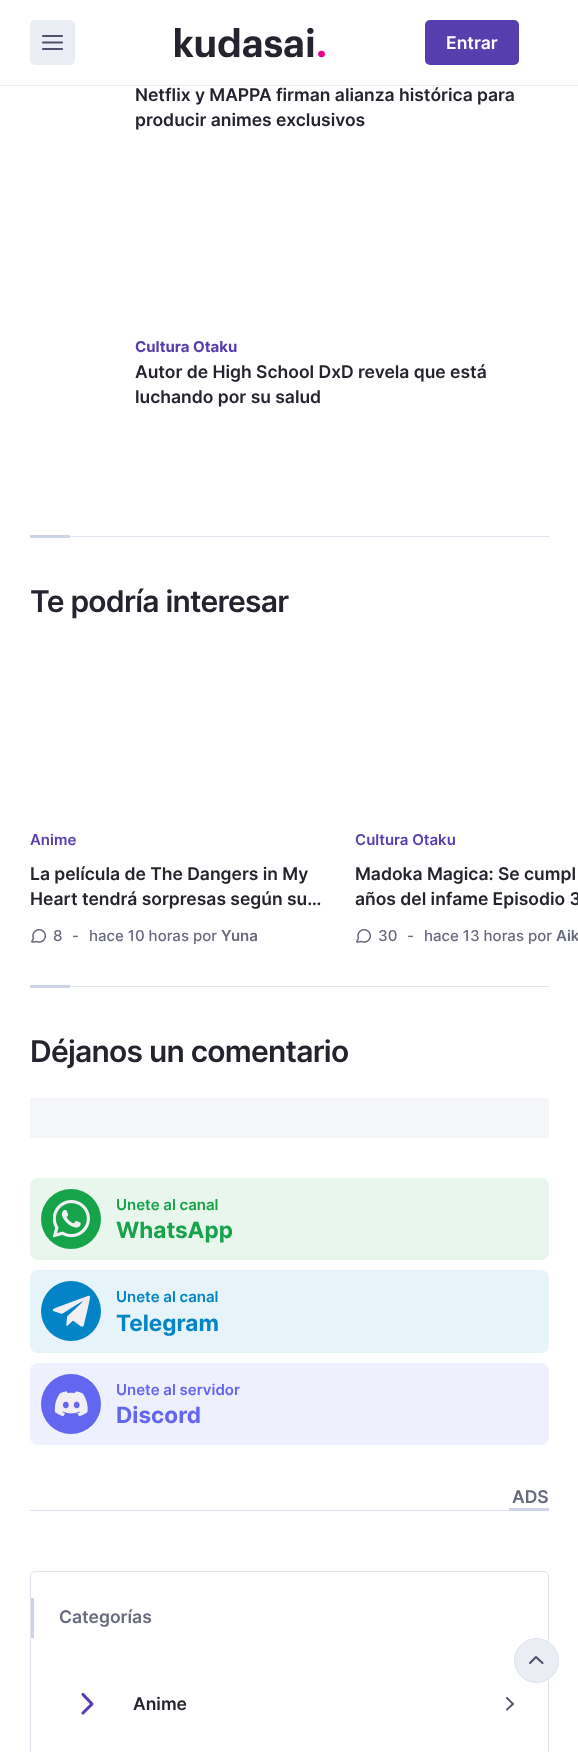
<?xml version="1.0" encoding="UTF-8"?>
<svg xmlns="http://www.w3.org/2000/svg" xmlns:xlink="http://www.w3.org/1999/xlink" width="578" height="1752">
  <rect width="100%" height="100%" fill="#ffffff" />
  <rect y="85" width="578" height="1" fill="#eaedf4" />
  <rect x="30" y="20" width="45" height="45" rx="5" fill="#eaedf4" />
  <path d="M 43 42.5 h 19 m -19 -6.5 h 19 m -19 13 h 19" fill="none" stroke="#4f526a" stroke-width="2.1" stroke-linecap="round" stroke-linejoin="round" />
  <image x="175" y="28" width="150" height="30" xlink:href="image1.png" />
  <rect x="425" y="20" width="94" height="45" rx="5" fill="#583daf" />
  <rect x="70" y="536" width="479" height="1" fill="#dee3ee" />
  <rect x="30" y="535" width="40" height="3" fill="#cdd4e5" />
  <image x="31" y="929" width="15" height="14" xlink:href="image2.png" />
  <image x="356" y="929" width="15" height="14" xlink:href="image2.png" />
  <rect x="70" y="986" width="479" height="1" fill="#dee3ee" />
  <rect x="30" y="985" width="40" height="3" fill="#cdd4e5" />
  <rect x="30" y="1098" width="519" height="40" fill="#f5f6fa" />
  <rect x="30" y="1178" width="519" height="82" rx="8" fill="#e8f6ed" />
  <circle cx="71" cy="1219" r="30" fill="#16a34a" />
  <image x="53" y="1200" width="37" height="38" xlink:href="image3.png" />
  <rect x="30" y="1270" width="519" height="83" rx="8" fill="#e6f3f9" />
  <circle cx="71" cy="1311" r="30" fill="#0284c7" />
  <image x="53" y="1295" width="37" height="32" xlink:href="image4.png" />
  <rect x="30" y="1363" width="519" height="82" rx="8" fill="#eff0fe" />
  <circle cx="71" cy="1404" r="30" fill="#6366f1" />
  <image x="54" y="1391" width="34" height="26" xlink:href="image5.png" />
  <rect x="30" y="1510" width="479" height="1" fill="#dee3ee" />
  <rect x="509" y="1508" width="40" height="3" fill="#cdd4e5" />
  <rect x="30.5" y="1571.5" width="518" height="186" rx="4.5" fill="none" stroke="#dee3ee" />
  <rect x="31" y="1598" width="3" height="40" fill="#cdd4e5" />
  <path d="M 83 1713 l 9 -9 l -9 -9.5" fill="none" stroke="#583daf" stroke-width="3.1" stroke-linecap="round" stroke-linejoin="round" />
  <path d="M 507 1709.5 l 6 -5.5 l -6 -6" fill="none" stroke="#4f526a" stroke-width="1.9" stroke-linecap="round" stroke-linejoin="round" />
  <circle cx="536.5" cy="1660.5" r="22" fill="#eaedf4" stroke="#dee3ee" />
  <path d="M 542.5 1663 l -6.5 -6 l -6 6" fill="none" stroke="#4f526a" stroke-width="2.1" stroke-linecap="round" stroke-linejoin="round" />
  <text x="446" y="49" style="font-family: Inter; font-size: 17.5px; font-weight: 600; fill: #ffffff">Entrar</text>
  <text x="135" y="101" style="font-family: Inter; font-size: 17.5px; font-weight: 600; fill: #23242d">Netflix y MAPPA firman alianza histórica para</text>
  <text x="135" y="126" style="font-family: Inter; font-size: 17.5px; font-weight: 600; fill: #23242d">producir animes exclusivos</text>
  <text x="135" y="352" style="font-family: Inter; font-size: 15px; font-weight: bold; fill: #583daf">Cultura Otaku</text>
  <text x="135" y="378" style="font-family: Inter; font-size: 17.5px; font-weight: 600; fill: #23242d">Autor de High School DxD revela que está</text>
  <text x="135" y="403" style="font-family: Inter; font-size: 17.5px; font-weight: 600; fill: #23242d">luchando por su salud</text>
  <text x="30" y="612" style="font-family: Inter; font-size: 30px; font-weight: 600; letter-spacing: -0.75px; fill: #23242d">Te podría interesar</text>
  <text x="30" y="845" style="font-family: Inter; font-size: 15px; font-weight: 600; fill: #583daf">Anime</text>
  <text x="30" y="880" style="font-family: Inter; font-size: 17.5px; font-weight: 600; fill: #23242d">La película de The Dangers in My</text>
  <text x="30" y="905" style="font-family: Inter; font-size: 17.5px; font-weight: 600; fill: #23242d">Heart tendrá sorpresas según su…</text>
  <text x="53" y="941" style="font-family: Inter; font-size: 15px; font-weight: 500; fill: #686a7d">8</text>
  <text x="72" y="941" style="font-family: Inter; font-size: 15px; font-weight: 500; fill: #686a7d">-</text>
  <text x="89" y="941" style="font-family: Inter; font-size: 15px; font-weight: 500; fill: #686a7d">hace 10 horas por</text>
  <text x="221" y="941" style="font-family: Inter; font-size: 15px; font-weight: 600; fill: #686a7d">Yuna</text>
  <text x="355" y="845" style="font-family: Inter; font-size: 15px; font-weight: 600; fill: #583daf">Cultura Otaku</text>
  <text x="355" y="880" style="font-family: Inter; font-size: 17.5px; font-weight: 600; fill: #23242d">Madoka Magica: Se cumpl</text>
  <text x="355" y="905" style="font-family: Inter; font-size: 17.5px; font-weight: 600; fill: #23242d">años del infame Episodio 3</text>
  <text x="378" y="941" style="font-family: Inter; font-size: 15px; font-weight: 500; fill: #686a7d">30</text>
  <text x="407" y="941" style="font-family: Inter; font-size: 15px; font-weight: 500; fill: #686a7d">-</text>
  <text x="424" y="941" style="font-family: Inter; font-size: 15px; font-weight: 500; fill: #686a7d">hace 13 horas por</text>
  <text x="556" y="941" style="font-family: Inter; font-size: 15px; font-weight: 600; fill: #686a7d">Aik</text>
  <text x="30" y="1062" style="font-family: Inter; font-size: 30px; font-weight: 600; letter-spacing: -0.75px; fill: #23242d">Déjanos un comentario</text>
  <text x="116" y="1210" style="font-family: Inter; font-size: 15px; font-weight: 600; fill: #16a34a">Unete al canal</text>
  <text x="116" y="1238" style="font-family: Inter; font-size: 22.5px; font-weight: bold; fill: #16a34a">WhatsApp</text>
  <text x="116" y="1302" style="font-family: Inter; font-size: 15px; font-weight: 600; fill: #0284c7">Unete al canal</text>
  <text x="116" y="1331" style="font-family: Inter; font-size: 22.5px; font-weight: bold; fill: #0284c7">Telegram</text>
  <text x="116" y="1395" style="font-family: Inter; font-size: 15px; font-weight: 600; fill: #6366f1">Unete al servidor</text>
  <text x="116" y="1423" style="font-family: Inter; font-size: 22.5px; font-weight: bold; fill: #6366f1">Discord</text>
  <text x="512" y="1503" style="font-family: Inter; font-size: 17.5px; font-weight: 600; fill: #686a7d">ADS</text>
  <text x="59" y="1623" style="font-family: Inter; font-size: 17.5px; font-weight: 600; fill: #686a7d">Categorías</text>
  <text x="133" y="1710" style="font-family: Inter; font-size: 17.5px; font-weight: 600; fill: #23242d">Anime</text>
</svg>
